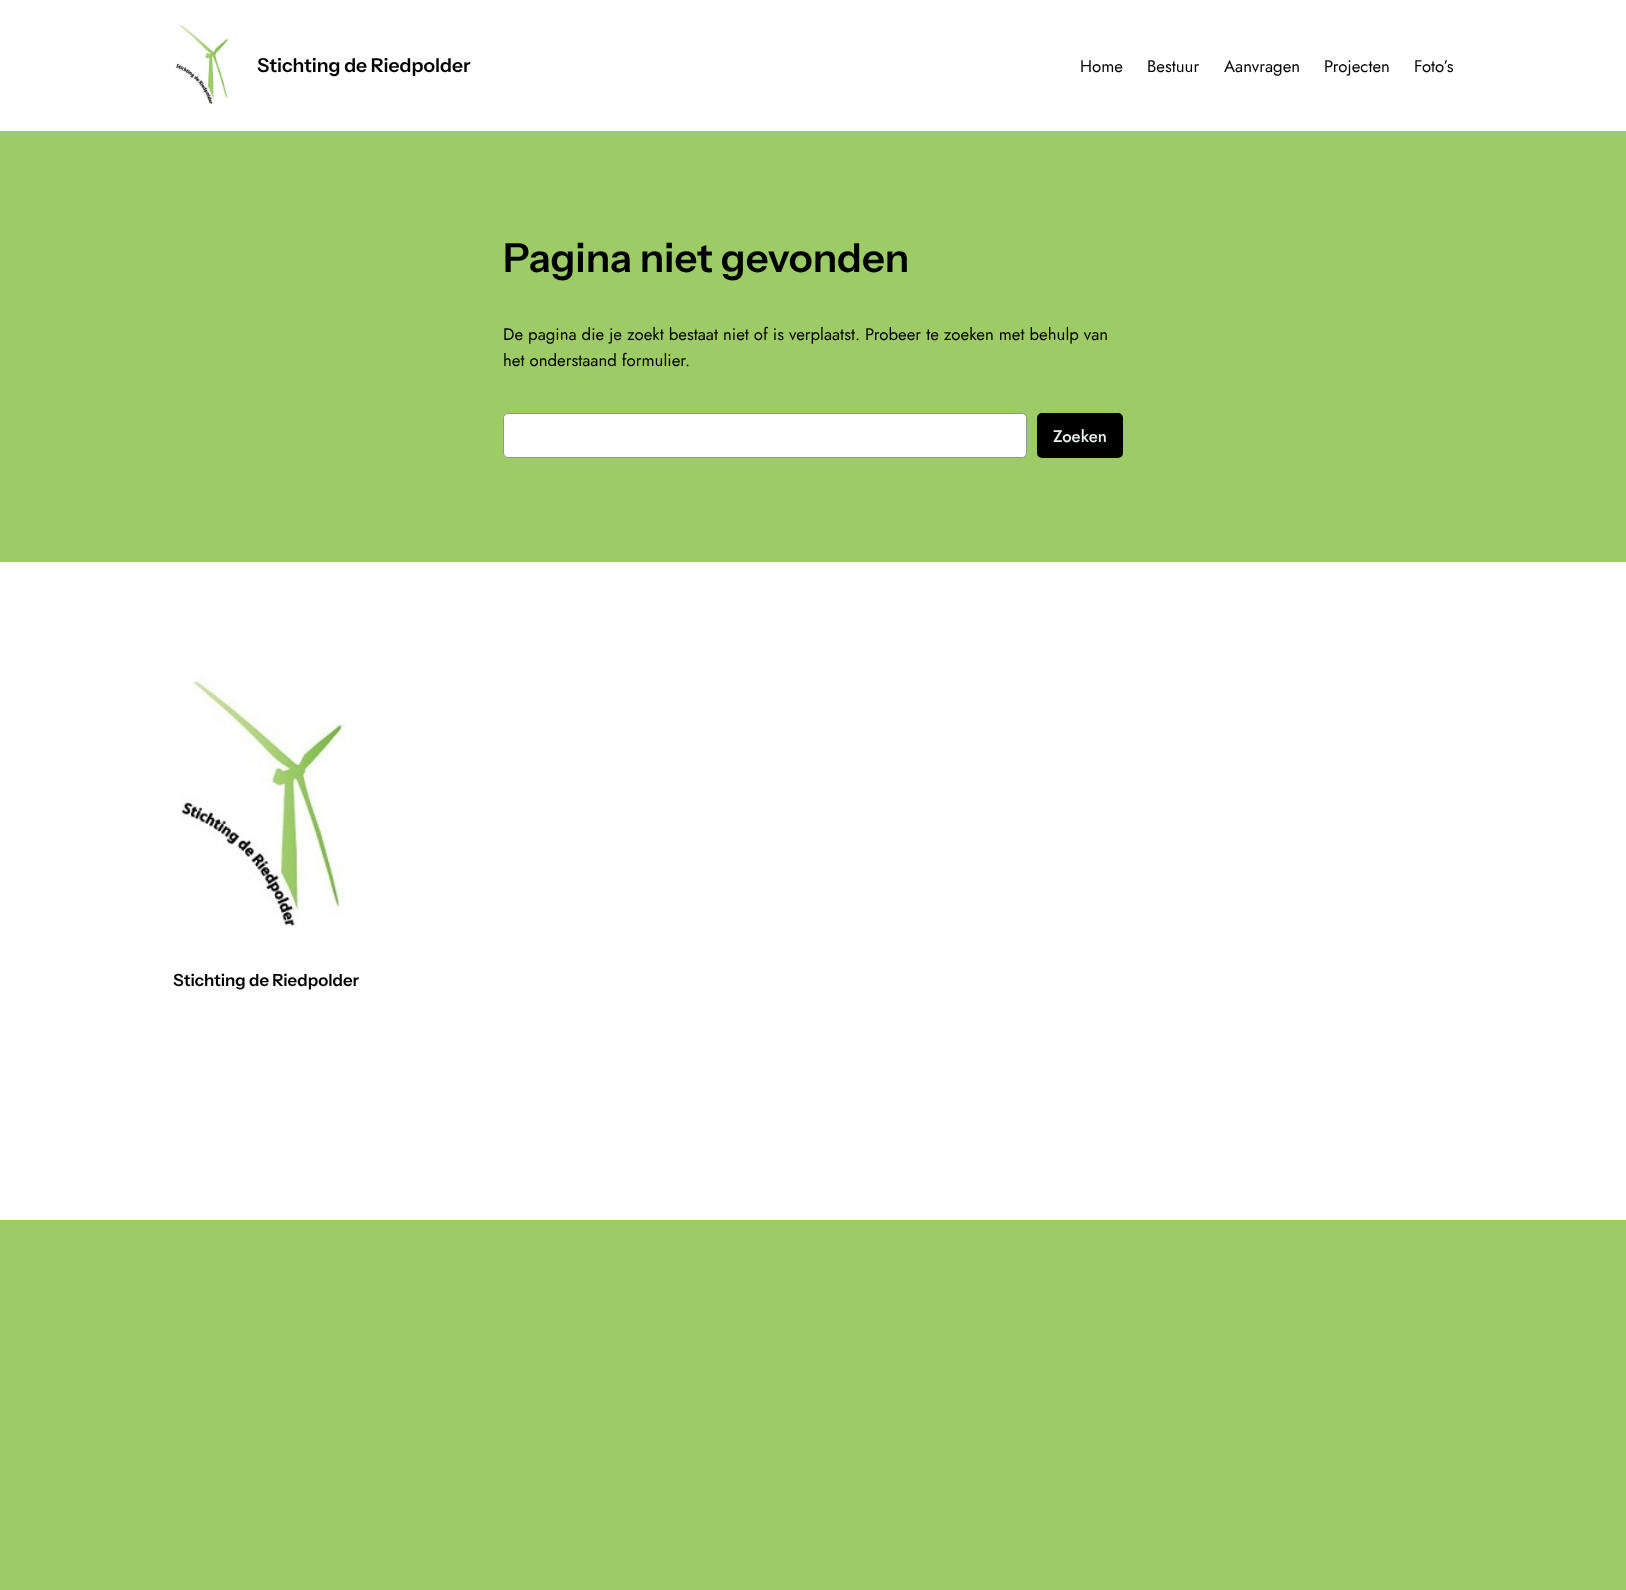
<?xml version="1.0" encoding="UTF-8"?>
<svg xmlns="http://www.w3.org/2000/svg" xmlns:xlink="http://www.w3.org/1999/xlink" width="1626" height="1590">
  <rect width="100%" height="100%" fill="#9dcc66" />
  <rect width="1626" height="131" fill="#ffffff" />
  <image x="175" y="24" width="54" height="80" xlink:href="image1.png" />
  <rect x="503.5" y="413.5" width="523" height="44" rx="4.5" fill="#ffffff" stroke="#949494" />
  <rect x="1037" y="413" width="86" height="45" rx="5" fill="#000000" />
  <rect y="562" width="1626" height="658" fill="#ffffff" />
  <image x="180" y="676" width="166" height="251" xlink:href="image2.png" />
  <text x="257" y="72" style="font-family: Instrument Sans; font-size: 19.25px; font-weight: 600; fill: #000000">Stichting de Riedpolder</text>
  <text x="1080" y="72" style="font-family: Jost; font-size: 16.8px; fill: #000000">Home</text>
  <text x="1147" y="72" style="font-family: Jost; font-size: 16.8px; fill: #000000">Bestuur</text>
  <text x="1224" y="72" style="font-family: Jost; font-size: 16.8px; fill: #000000">Aanvragen</text>
  <text x="1324" y="72" style="font-family: Jost; font-size: 16.8px; fill: #000000">Projecten</text>
  <text x="1414" y="72" style="font-family: Jost; font-size: 16.8px; fill: #000000">Foto’s</text>
  <text x="503" y="272" style="font-family: Instrument Sans; font-size: 40px; font-weight: 600; fill: #000000">Pagina niet gevonden</text>
  <text x="503" y="340" style="font-family: Jost; font-size: 16.8px; fill: #000000">De pagina die je zoekt bestaat niet of is verplaatst. Probeer te zoeken met behulp van</text>
  <text x="503" y="366" style="font-family: Jost; font-size: 16.8px; fill: #000000">het onderstaand formulier.</text>
  <text x="1053" y="442" style="font-family: Jost; font-size: 16.8px; font-weight: 500; fill: #e4efeb">Zoeken</text>
  <text x="173" y="986" style="font-family: Instrument Sans; font-size: 16.8px; font-weight: 600; fill: #000000">Stichting de Riedpolder</text>
</svg>
